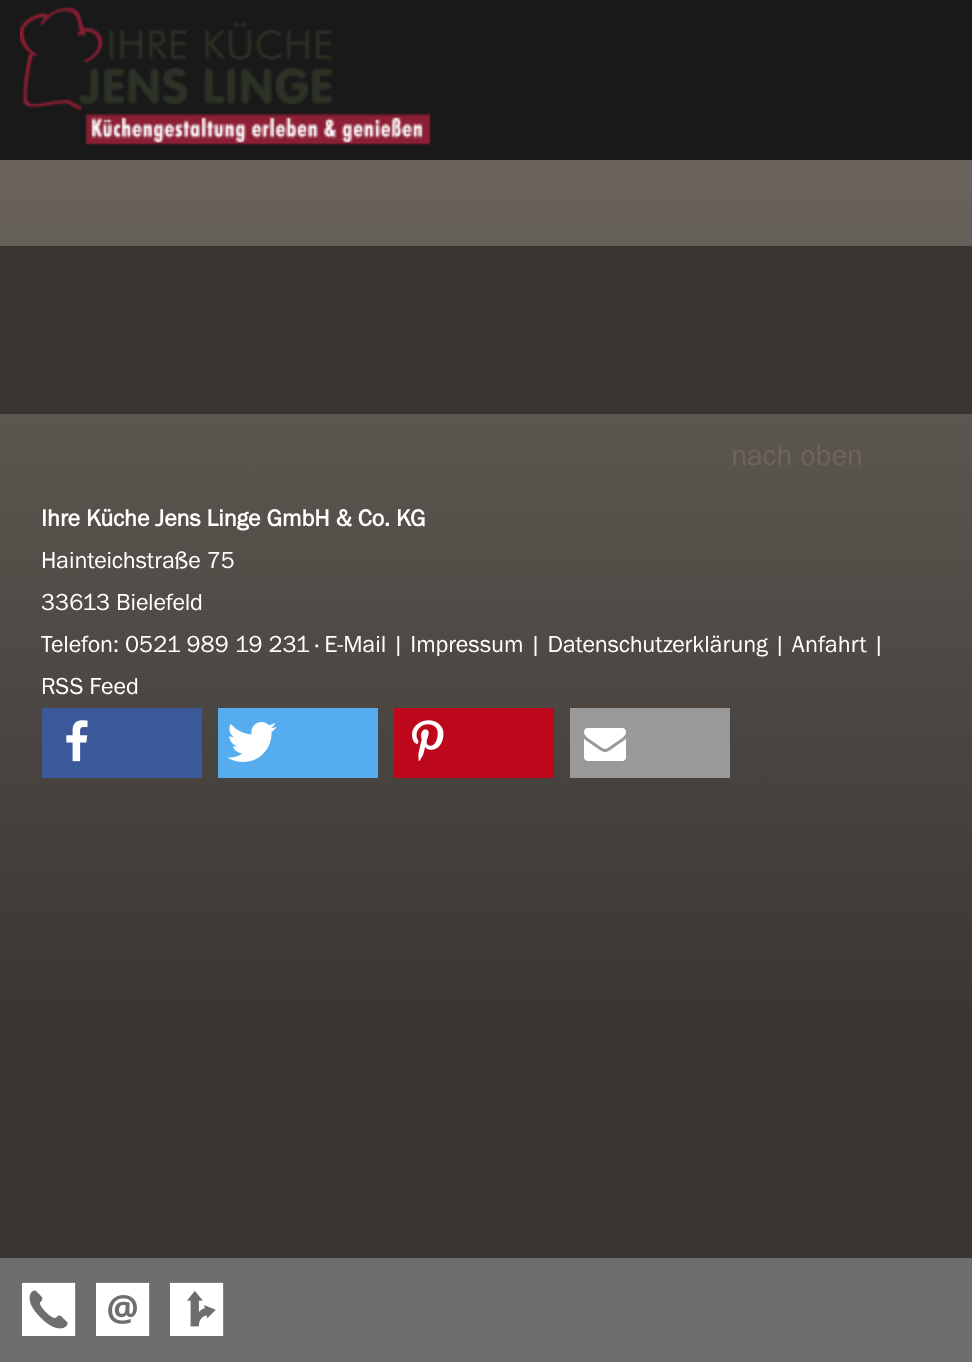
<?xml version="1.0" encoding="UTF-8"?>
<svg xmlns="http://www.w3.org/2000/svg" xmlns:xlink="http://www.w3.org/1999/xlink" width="972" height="1362">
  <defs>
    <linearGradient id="g1" gradientUnits="userSpaceOnUse" x1="486" y1="0" x2="486" y2="1362"><stop offset="0" stop-color="#736c65" /><stop offset="0.76" stop-color="#393531" /></linearGradient>
  </defs>
  <rect width="100%" height="100%" fill="#ffffff" />
  <rect y="160" width="972" height="1098" fill="url(#g1)" />
  <rect width="972" height="160" fill="#191919" />
  <image x="20" y="7" width="411" height="138" xlink:href="image1.png" />
  <rect y="1258" width="972" height="104" fill="#6d6e70" />
  <image x="22" y="1282" width="54" height="54" xlink:href="image2.png" />
  <image x="96" y="1282" width="54" height="54" xlink:href="image3.png" />
  <image x="170" y="1282" width="54" height="54" xlink:href="image4.png" />
  <rect y="246" width="972" height="168" fill="#393531" />
  <rect x="42" y="708" width="160" height="70" fill="#3b5998" />
  <image x="66" y="720" width="22" height="42" xlink:href="image5.png" />
  <rect x="218" y="708" width="160" height="70" fill="#55acee" />
  <image x="227" y="722" width="50" height="40" xlink:href="image6.png" />
  <rect x="394" y="708" width="160" height="70" fill="#bd081c" />
  <image x="412" y="720" width="32" height="42" xlink:href="image7.png" />
  <rect x="570" y="708" width="160" height="70" fill="#999999" />
  <image x="584" y="728" width="42" height="33" xlink:href="image8.png" />
  <text x="731" y="465" style="font-family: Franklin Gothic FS; font-size: 30px; fill: #716558">nach oben</text>
  <text x="41" y="526" style="font-family: Franklin Gothic FS; font-size: 24px; font-weight: bold; fill: #ffffff">Ihre Küche Jens Linge GmbH &amp; Co. KG</text>
  <text x="41" y="568" style="font-family: Franklin Gothic FS; font-size: 24px; fill: #ffffff">Hainteichstraße 75</text>
  <text x="41" y="610" style="font-family: Franklin Gothic FS; font-size: 24px; fill: #ffffff">33613 Bielefeld</text>
  <text x="41" y="652" style="font-family: Franklin Gothic FS; font-size: 24px; fill: #ffffff">Telefon: 0521 989 19 231 · E-Mail | Impressum | Datenschutzerklärung | Anfahrt |</text>
  <text x="41" y="694" style="font-family: Franklin Gothic FS; font-size: 24px; fill: #ffffff">RSS Feed</text>
</svg>
